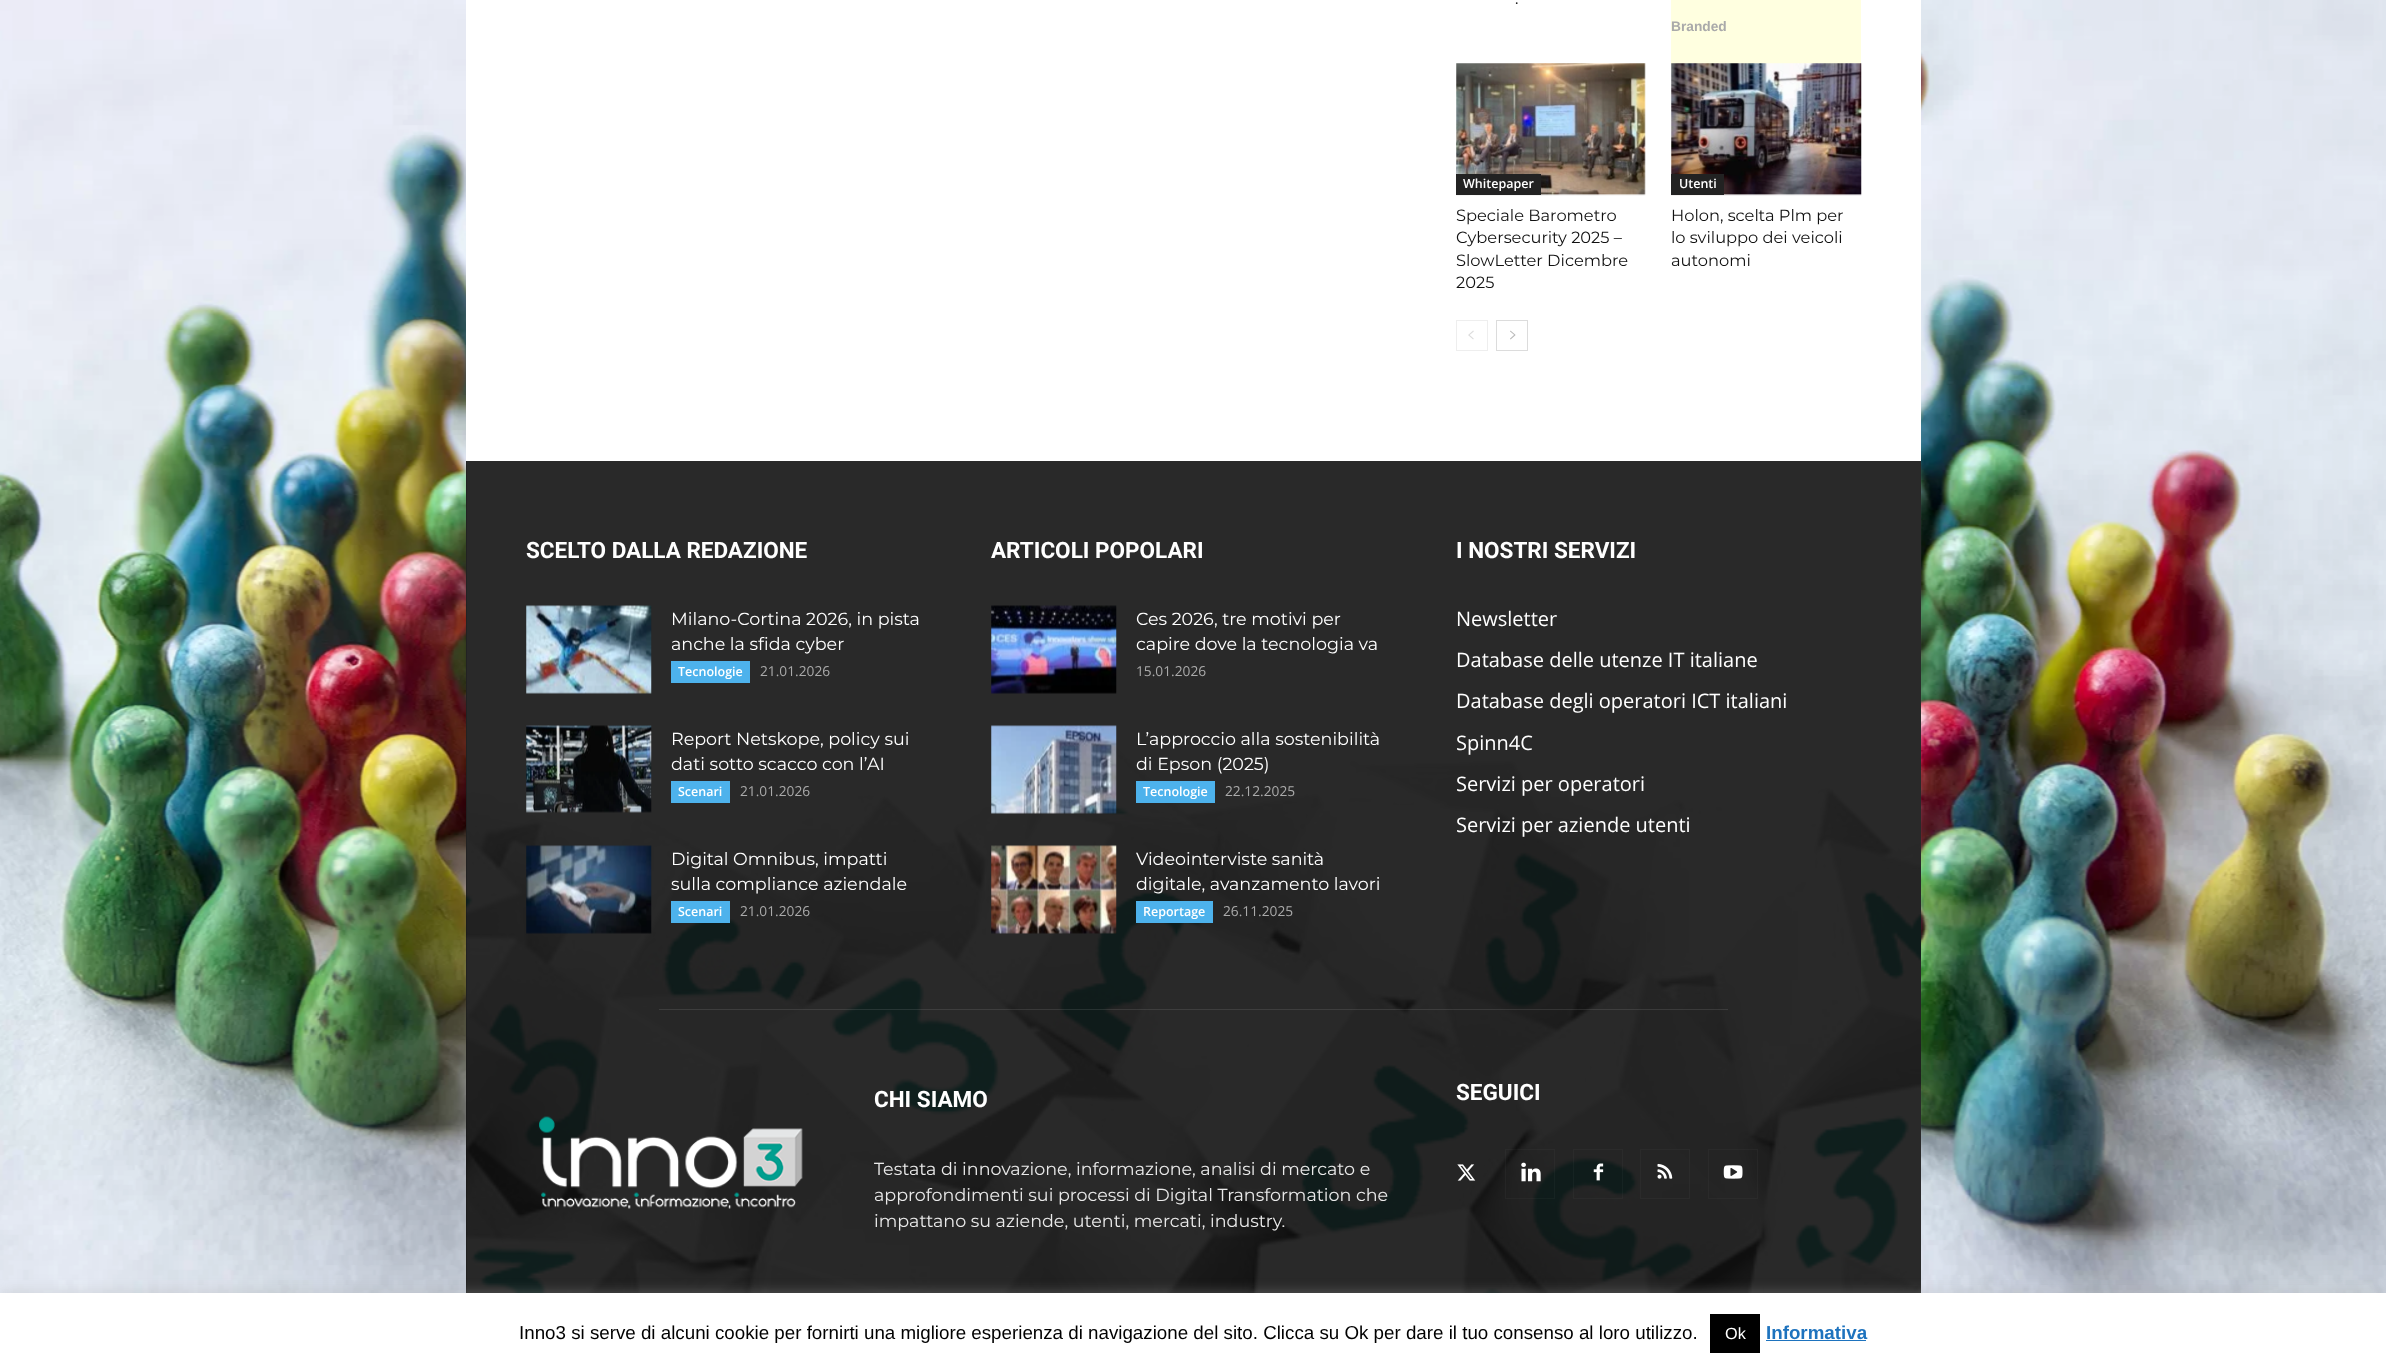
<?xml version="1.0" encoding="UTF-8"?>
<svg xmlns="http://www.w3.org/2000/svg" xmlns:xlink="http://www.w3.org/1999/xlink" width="2386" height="1367">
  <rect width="100%" height="100%" fill="#ffffff" />
  <image x="0" y="0" width="2386" height="1293" xlink:href="image1.png" />
  <rect x="466" width="1455" height="461" fill="#ffffff" />
  <rect x="1671" width="190" height="64" fill="#ffffe0" />
  <image x="1456" y="63" width="190" height="133" xlink:href="image2.png" />
  <rect x="1456" y="174" width="85" height="21" fill="#222222" />
  <image x="1671" y="63" width="191" height="133" xlink:href="image3.png" />
  <rect x="1671" y="174" width="53" height="21" fill="#222222" />
  <rect x="1456.5" y="320.5" width="31" height="30" fill="none" stroke="#eeeeee" />
  <image x="1468" y="330" width="6" height="10" xlink:href="image4.png" />
  <rect x="1496.5" y="320.5" width="31" height="30" fill="none" stroke="#dcdcdc" />
  <image x="1510" y="330" width="6" height="10" xlink:href="image5.png" />
  <rect x="466" y="461" width="1455" height="832" fill="#111111" />
  <image x="466" y="461" width="1456" height="832" xlink:href="image6.png" />
  <image x="526" y="605" width="126" height="89" xlink:href="image7.png" />
  <rect x="671" y="661" width="79" height="22" fill="#4db2ec" />
  <image x="526" y="725" width="126" height="88" xlink:href="image8.png" />
  <rect x="671" y="781" width="59" height="22" fill="#4db2ec" />
  <image x="526" y="845" width="126" height="89" xlink:href="image9.png" />
  <rect x="671" y="901" width="59" height="22" fill="#4db2ec" />
  <image x="991" y="605" width="126" height="89" xlink:href="image10.png" />
  <image x="991" y="725" width="126" height="89" xlink:href="image11.png" />
  <rect x="1136" y="781" width="79" height="22" fill="#4db2ec" />
  <image x="991" y="845" width="126" height="89" xlink:href="image12.png" />
  <rect x="1136" y="901" width="77" height="22" fill="#4db2ec" />
  <rect x="659" y="1009" width="1069" height="1" fill="#ffffff" fill-opacity="0.1" />
  <image x="539" y="1116" width="264" height="93" xlink:href="image13.png" />
  <image x="1457" y="1164" width="19" height="17" xlink:href="image14.png" />
  <image x="1521" y="1162" width="20" height="20" xlink:href="image15.png" />
  <rect x="1505.5" y="1149.5" width="49" height="49" fill="none" stroke="#ffffff" stroke-opacity="0.03" />
  <image x="1593" y="1163" width="11" height="18" xlink:href="image16.png" />
  <rect x="1573.5" y="1149.5" width="49" height="49" fill="none" stroke="#ffffff" stroke-opacity="0.03" />
  <image x="1657" y="1163" width="16" height="16" xlink:href="image17.png" />
  <rect x="1640.5" y="1149.5" width="49" height="49" fill="none" stroke="#2b2b2b" />
  <image x="1723" y="1165" width="20" height="14" xlink:href="image18.png" />
  <rect x="1708.5" y="1149.5" width="49" height="49" fill="none" stroke="#ffffff" stroke-opacity="0.03" />
  <rect y="1291" width="2386" height="75" fill="#acabab" fill-opacity="0.3" filter="blur(6px)" />
  <rect y="1293" width="2386" height="74" fill="#ffffff" />
  <rect x="1710" y="1314" width="50" height="39" fill="#000000" />
  <rect x="1766" y="1340" width="100" height="1" fill="#1e73be" />
  <text x="1515" y="4" style="font-family: Montserrat; font-size: 16.25px; font-weight: 100; fill: #111111">.</text>
  <text x="1671" y="31" style="font-family: Liberation Sans; font-size: 13.75px; font-weight: bold; fill: #aaaaaa">Branded</text>
  <text x="1463" y="188" style="font-family: Open Sans; font-size: 12.5px; font-weight: 600; fill: #ffffff">Whitepaper</text>
  <text x="1456" y="221" style="font-family: Montserrat; font-size: 16.25px; font-weight: 100; fill: #111111">Speciale Barometro</text>
  <text x="1456" y="243" style="font-family: Montserrat; font-size: 16.25px; font-weight: 100; fill: #111111">Cybersecurity 2025 –</text>
  <text x="1456" y="266" style="font-family: Montserrat; font-size: 16.25px; font-weight: 100; fill: #111111">SlowLetter Dicembre</text>
  <text x="1456" y="288" style="font-family: Montserrat; font-size: 16.25px; font-weight: 100; fill: #111111">2025</text>
  <text x="1679" y="188" style="font-family: Open Sans; font-size: 12.5px; font-weight: 600; fill: #ffffff">Utenti</text>
  <text x="1671" y="221" style="font-family: Montserrat; font-size: 16.25px; font-weight: 100; fill: #111111">Holon, scelta Plm per</text>
  <text x="1671" y="243" style="font-family: Montserrat; font-size: 16.25px; font-weight: 100; fill: #111111">lo sviluppo dei veicoli</text>
  <text x="1671" y="266" style="font-family: Montserrat; font-size: 16.25px; font-weight: 100; fill: #111111">autonomi</text>
  <text x="526" y="558" style="font-family: Roboto; font-size: 22.5px; font-weight: bold; fill: #ffffff">SCELTO DALLA REDAZIONE</text>
  <text x="671" y="625" style="font-family: Montserrat; font-size: 17.5px; font-weight: 100; fill: #ffffff">Milano-Cortina 2026, in pista</text>
  <text x="671" y="650" style="font-family: Montserrat; font-size: 17.5px; font-weight: 100; fill: #ffffff">anche la sfida cyber</text>
  <text x="678" y="676" style="font-family: Open Sans; font-size: 12.5px; font-weight: 600; fill: #ffffff">Tecnologie</text>
  <text x="760" y="676" style="font-family: Open Sans; font-size: 13.75px; fill: #aaaaaa">21.01.2026</text>
  <text x="671" y="745" style="font-family: Montserrat; font-size: 17.5px; font-weight: 100; fill: #ffffff">Report Netskope, policy sui</text>
  <text x="671" y="770" style="font-family: Montserrat; font-size: 17.5px; font-weight: 100; fill: #ffffff">dati sotto scacco con l’AI</text>
  <text x="678" y="796" style="font-family: Open Sans; font-size: 12.5px; font-weight: 600; fill: #ffffff">Scenari</text>
  <text x="740" y="796" style="font-family: Open Sans; font-size: 13.75px; fill: #aaaaaa">21.01.2026</text>
  <text x="671" y="865" style="font-family: Montserrat; font-size: 17.5px; font-weight: 100; fill: #ffffff">Digital Omnibus, impatti</text>
  <text x="671" y="890" style="font-family: Montserrat; font-size: 17.5px; font-weight: 100; fill: #ffffff">sulla compliance aziendale</text>
  <text x="678" y="916" style="font-family: Open Sans; font-size: 12.5px; font-weight: 600; fill: #ffffff">Scenari</text>
  <text x="740" y="916" style="font-family: Open Sans; font-size: 13.75px; fill: #aaaaaa">21.01.2026</text>
  <text x="991" y="558" style="font-family: Roboto; font-size: 22.5px; font-weight: bold; fill: #ffffff">ARTICOLI POPOLARI</text>
  <text x="1136" y="625" style="font-family: Montserrat; font-size: 17.5px; font-weight: 100; fill: #ffffff">Ces 2026, tre motivi per</text>
  <text x="1136" y="650" style="font-family: Montserrat; font-size: 17.5px; font-weight: 100; fill: #ffffff">capire dove la tecnologia va</text>
  <text x="1136" y="676" style="font-family: Open Sans; font-size: 13.75px; fill: #aaaaaa">15.01.2026</text>
  <text x="1136" y="745" style="font-family: Montserrat; font-size: 17.5px; font-weight: 100; fill: #ffffff">L’approccio alla sostenibilità</text>
  <text x="1136" y="770" style="font-family: Montserrat; font-size: 17.5px; font-weight: 100; fill: #ffffff">di Epson (2025)</text>
  <text x="1143" y="796" style="font-family: Open Sans; font-size: 12.5px; font-weight: 600; fill: #ffffff">Tecnologie</text>
  <text x="1225" y="796" style="font-family: Open Sans; font-size: 13.75px; fill: #aaaaaa">22.12.2025</text>
  <text x="1136" y="865" style="font-family: Montserrat; font-size: 17.5px; font-weight: 100; fill: #ffffff">Videointerviste sanità</text>
  <text x="1136" y="890" style="font-family: Montserrat; font-size: 17.5px; font-weight: 100; fill: #ffffff">digitale, avanzamento lavori</text>
  <text x="1143" y="916" style="font-family: Open Sans; font-size: 12.5px; font-weight: 600; fill: #ffffff">Reportage</text>
  <text x="1223" y="916" style="font-family: Open Sans; font-size: 13.75px; fill: #aaaaaa">26.11.2025</text>
  <text x="1456" y="558" style="font-family: Roboto; font-size: 22.5px; font-weight: bold; fill: #ffffff">I NOSTRI SERVIZI</text>
  <text x="1456" y="626" style="font-family: Open Sans; font-size: 20px; fill: #ffffff">Newsletter</text>
  <text x="1456" y="667" style="font-family: Open Sans; font-size: 20px; fill: #ffffff">Database delle utenze IT italiane</text>
  <text x="1456" y="708" style="font-family: Open Sans; font-size: 20px; fill: #ffffff">Database degli operatori ICT italiani</text>
  <text x="1456" y="750" style="font-family: Open Sans; font-size: 20px; fill: #ffffff">Spinn4C</text>
  <text x="1456" y="791" style="font-family: Open Sans; font-size: 20px; fill: #ffffff">Servizi per operatori</text>
  <text x="1456" y="832" style="font-family: Open Sans; font-size: 20px; fill: #ffffff">Servizi per aziende utenti</text>
  <text x="874" y="1107" style="font-family: Roboto; font-size: 22.5px; font-weight: bold; fill: #ffffff">CHI SIAMO</text>
  <text x="874" y="1175" style="font-family: Montserrat; font-size: 17.5px; font-weight: 100; fill: #eaeaea">Testata di innovazione, informazione, analisi di mercato e</text>
  <text x="874" y="1201" style="font-family: Montserrat; font-size: 17.5px; font-weight: 100; fill: #eaeaea">approfondimenti sui processi di Digital Transformation che</text>
  <text x="874" y="1227" style="font-family: Montserrat; font-size: 17.5px; font-weight: 100; fill: #eaeaea">impattano su aziende, utenti, mercati, industry.</text>
  <text x="1456" y="1100" style="font-family: Roboto; font-size: 22.5px; font-weight: bold; fill: #ffffff">SEGUICI</text>
  <text x="519" y="1339" style="font-family: Liberation Sans; font-size: 18.75px; fill: #000000">Inno3 si serve di alcuni cookie per fornirti una migliore esperienza di navigazione del sito. Clicca su Ok per dare il tuo consenso al loro utilizzo.</text>
  <text x="1725" y="1339" style="font-family: Liberation Sans; font-size: 16.25px; fill: #ffffff">Ok</text>
  <text x="1766" y="1339" style="font-family: Liberation Sans; font-size: 18.75px; font-weight: bold; fill: #1e73be">Informativa</text>
</svg>
